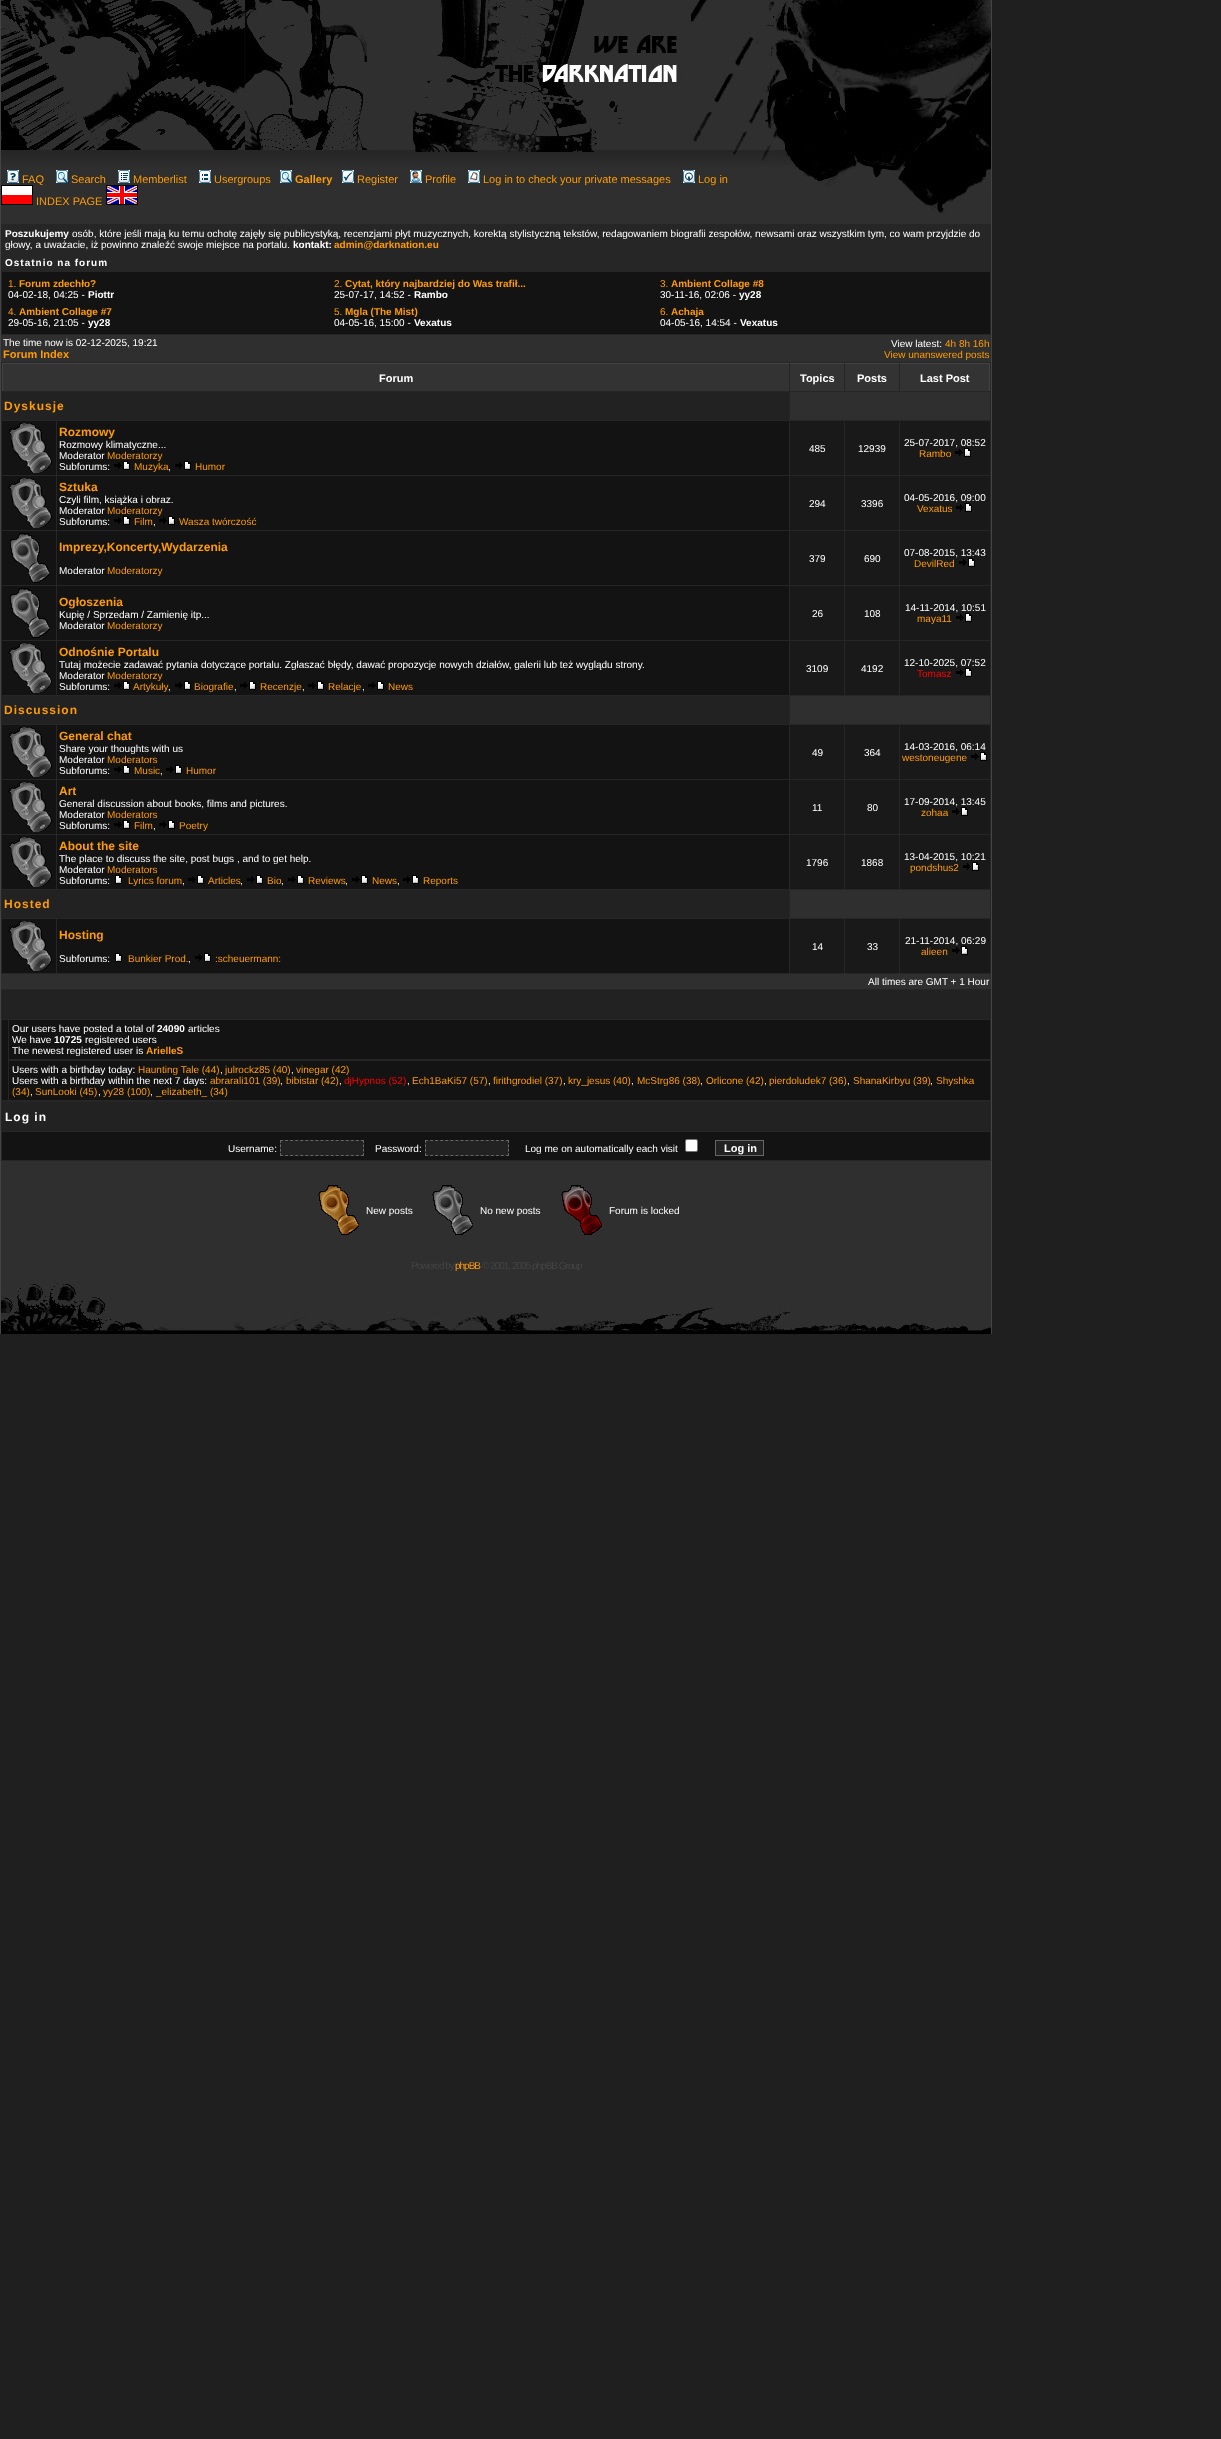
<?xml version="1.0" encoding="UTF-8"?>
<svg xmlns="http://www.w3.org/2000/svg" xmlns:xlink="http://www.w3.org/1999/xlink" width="1221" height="2439">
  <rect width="100%" height="100%" fill="#1f1f1f" />
  <rect x="1" y="170" width="990" height="1112" fill="#2f2f2f" />
  <rect x="991" width="1" height="1334" fill="#444444" />
  <rect width="1" height="1334" fill="#444444" />
  <image x="1" y="0" width="990" height="170" xlink:href="image1.png" />
  <image x="7" y="170" width="12" height="13" xlink:href="image2.png" />
  <image x="56" y="170" width="12" height="13" xlink:href="image3.png" />
  <image x="118" y="170" width="12" height="13" xlink:href="image4.png" />
  <image x="199" y="170" width="12" height="13" xlink:href="image5.png" />
  <image x="280" y="170" width="12" height="13" xlink:href="image3.png" />
  <image x="342" y="170" width="12" height="13" xlink:href="image6.png" />
  <image x="410" y="170" width="12" height="13" xlink:href="image7.png" />
  <image x="468" y="170" width="12" height="13" xlink:href="image8.png" />
  <image x="683" y="170" width="12" height="13" xlink:href="image9.png" />
  <image x="106" y="185" width="32" height="20" xlink:href="image11.png" />
  <image x="801" y="170" width="186" height="43" xlink:href="image12.png" />
  <rect x="1" y="224" width="990" height="111" fill="#262626" />
  <rect x="2" y="272" width="988" height="62" fill="#131313" />
  <rect x="1" y="362" width="990" height="612" fill="#262626" />
  <rect x="3" y="364" width="786" height="27" fill="#333333" />
  <rect x="2" y="363" width="787" height="1" fill="#444444" />
  <rect x="2" y="363" width="1" height="28" fill="#444444" />
  <rect x="790" y="364" width="54" height="27" fill="#333333" />
  <rect x="790" y="363" width="54" height="1" fill="#444444" />
  <rect x="845" y="364" width="54" height="27" fill="#333333" />
  <rect x="845" y="363" width="54" height="1" fill="#444444" />
  <rect x="900" y="364" width="89" height="27" fill="#333333" />
  <rect x="900" y="363" width="90" height="1" fill="#444444" />
  <rect x="989" y="363" width="1" height="28" fill="#444444" />
  <rect x="2" y="392" width="787" height="28" fill="#222222" />
  <rect x="790" y="392" width="200" height="28" fill="#2f2f2f" />
  <rect x="2" y="421" width="54" height="54" fill="#131313" />
  <image x="8" y="423" width="44" height="50" xlink:href="image13.png" />
  <rect x="57" y="421" width="732" height="54" fill="#131313" />
  <image x="175" y="461" width="16" height="9" xlink:href="image14.png" />
  <rect x="790" y="421" width="54" height="54" fill="#191919" />
  <rect x="845" y="421" width="54" height="54" fill="#191919" />
  <rect x="900" y="421" width="90" height="54" fill="#191919" />
  <image x="955" y="448" width="16" height="9" xlink:href="image15.png" />
  <rect x="2" y="476" width="54" height="54" fill="#131313" />
  <image x="8" y="478" width="44" height="50" xlink:href="image13.png" />
  <rect x="57" y="476" width="732" height="54" fill="#131313" />
  <rect x="790" y="476" width="54" height="54" fill="#191919" />
  <rect x="845" y="476" width="54" height="54" fill="#191919" />
  <rect x="900" y="476" width="90" height="54" fill="#191919" />
  <image x="956" y="503" width="16" height="9" xlink:href="image15.png" />
  <rect x="2" y="531" width="54" height="54" fill="#131313" />
  <image x="9" y="533" width="41" height="50" xlink:href="image16.png" />
  <rect x="57" y="531" width="732" height="54" fill="#131313" />
  <rect x="790" y="531" width="54" height="54" fill="#191919" />
  <rect x="845" y="531" width="54" height="54" fill="#191919" />
  <rect x="900" y="531" width="90" height="54" fill="#191919" />
  <image x="959" y="558" width="16" height="9" xlink:href="image15.png" />
  <rect x="2" y="586" width="54" height="54" fill="#131313" />
  <image x="9" y="588" width="41" height="50" xlink:href="image16.png" />
  <rect x="57" y="586" width="732" height="54" fill="#131313" />
  <rect x="790" y="586" width="54" height="54" fill="#191919" />
  <rect x="845" y="586" width="54" height="54" fill="#191919" />
  <rect x="900" y="586" width="90" height="54" fill="#191919" />
  <image x="956" y="613" width="16" height="9" xlink:href="image15.png" />
  <rect x="2" y="641" width="54" height="54" fill="#131313" />
  <image x="8" y="643" width="44" height="50" xlink:href="image13.png" />
  <rect x="57" y="641" width="732" height="54" fill="#131313" />
  <image x="175" y="681" width="16" height="9" xlink:href="image14.png" />
  <image x="240" y="681" width="16" height="9" xlink:href="image14.png" />
  <image x="308" y="681" width="16" height="9" xlink:href="image14.png" />
  <image x="368" y="681" width="16" height="9" xlink:href="image14.png" />
  <rect x="790" y="641" width="54" height="54" fill="#191919" />
  <rect x="845" y="641" width="54" height="54" fill="#191919" />
  <rect x="900" y="641" width="90" height="54" fill="#191919" />
  <image x="956" y="668" width="16" height="9" xlink:href="image15.png" />
  <rect x="2" y="696" width="787" height="28" fill="#222222" />
  <rect x="790" y="696" width="200" height="28" fill="#2f2f2f" />
  <rect x="2" y="725" width="54" height="54" fill="#131313" />
  <image x="8" y="727" width="44" height="50" xlink:href="image13.png" />
  <rect x="57" y="725" width="732" height="54" fill="#131313" />
  <image x="114" y="765" width="16" height="9" xlink:href="image14.png" />
  <image x="166" y="765" width="16" height="9" xlink:href="image14.png" />
  <rect x="790" y="725" width="54" height="54" fill="#191919" />
  <rect x="845" y="725" width="54" height="54" fill="#191919" />
  <rect x="900" y="725" width="90" height="54" fill="#191919" />
  <image x="971" y="752" width="16" height="9" xlink:href="image15.png" />
  <rect x="2" y="780" width="54" height="54" fill="#131313" />
  <image x="8" y="782" width="44" height="50" xlink:href="image13.png" />
  <rect x="57" y="780" width="732" height="54" fill="#131313" />
  <image x="114" y="820" width="16" height="9" xlink:href="image14.png" />
  <image x="159" y="820" width="16" height="9" xlink:href="image14.png" />
  <rect x="790" y="780" width="54" height="54" fill="#191919" />
  <rect x="845" y="780" width="54" height="54" fill="#191919" />
  <rect x="900" y="780" width="90" height="54" fill="#191919" />
  <image x="952" y="807" width="16" height="9" xlink:href="image15.png" />
  <rect x="2" y="835" width="54" height="54" fill="#131313" />
  <image x="8" y="837" width="44" height="50" xlink:href="image13.png" />
  <rect x="57" y="835" width="732" height="54" fill="#131313" />
  <image x="115" y="875" width="7" height="9" xlink:href="image17.png" />
  <image x="188" y="875" width="16" height="9" xlink:href="image14.png" />
  <image x="247" y="875" width="16" height="9" xlink:href="image14.png" />
  <image x="288" y="875" width="16" height="9" xlink:href="image14.png" />
  <image x="352" y="875" width="16" height="9" xlink:href="image14.png" />
  <image x="403" y="875" width="16" height="9" xlink:href="image14.png" />
  <rect x="790" y="835" width="54" height="54" fill="#191919" />
  <rect x="845" y="835" width="54" height="54" fill="#191919" />
  <rect x="900" y="835" width="90" height="54" fill="#191919" />
  <image x="963" y="862" width="16" height="9" xlink:href="image15.png" />
  <rect x="2" y="890" width="787" height="28" fill="#222222" />
  <rect x="790" y="890" width="200" height="28" fill="#2f2f2f" />
  <rect x="2" y="919" width="54" height="54" fill="#131313" />
  <image x="8" y="921" width="44" height="50" xlink:href="image13.png" />
  <rect x="57" y="919" width="732" height="54" fill="#131313" />
  <image x="115" y="953" width="7" height="9" xlink:href="image17.png" />
  <image x="195" y="953" width="16" height="9" xlink:href="image14.png" />
  <rect x="790" y="919" width="54" height="54" fill="#191919" />
  <rect x="845" y="919" width="54" height="54" fill="#191919" />
  <rect x="900" y="919" width="90" height="54" fill="#191919" />
  <image x="952" y="946" width="16" height="9" xlink:href="image15.png" />
  <rect x="1" y="989" width="990" height="172" fill="#262626" />
  <rect x="2" y="990" width="988" height="29" fill="#222222" />
  <rect x="2" y="1020" width="6" height="80" fill="#131313" />
  <rect x="9" y="1020" width="981" height="39" fill="#131313" />
  <rect x="9" y="1061" width="981" height="39" fill="#131313" />
  <rect x="2" y="1102" width="988" height="29" fill="#222222" />
  <rect x="2" y="1132" width="988" height="28" fill="#131313" />
  <rect x="280" y="1140" width="84" height="16" fill="#222222" />
  <path d="M 280 1140.5 h 84" fill="none" stroke="#666666" stroke-dasharray="3 2.06" />
  <path d="M 363.5 1140 v 16" fill="none" stroke="#666666" stroke-dasharray="3 1.33" />
  <path d="M 280 1155.5 h 84" fill="none" stroke="#666666" stroke-dasharray="3 2.06" />
  <path d="M 280.5 1140 v 16" fill="none" stroke="#666666" stroke-dasharray="3 1.33" />
  <rect x="425" y="1140" width="84" height="16" fill="#222222" />
  <path d="M 425 1140.5 h 84" fill="none" stroke="#666666" stroke-dasharray="3 2.06" />
  <path d="M 508.5 1140 v 16" fill="none" stroke="#666666" stroke-dasharray="3 1.33" />
  <path d="M 425 1155.5 h 84" fill="none" stroke="#666666" stroke-dasharray="3 2.06" />
  <path d="M 425.5 1140 v 16" fill="none" stroke="#666666" stroke-dasharray="3 1.33" />
  <rect x="685.5" y="1139.5" width="12" height="12" rx="1.5" fill="#ffffff" stroke="#767676" />
  <rect x="715.5" y="1140.5" width="48" height="15" fill="#222222" stroke="#666666" />
  <image x="318" y="1185" width="41" height="50" xlink:href="image18.png" />
  <image x="432" y="1185" width="41" height="50" xlink:href="image19.png" />
  <image x="561" y="1185" width="41" height="50" xlink:href="image20.png" />
  <image x="1" y="1282" width="990" height="52" xlink:href="image21.png" />
  <text x="22" y="183" style="font-family: Liberation Sans; font-size: 11px; fill: #ff9c00">FAQ</text>
  <text x="71" y="183" style="font-family: Liberation Sans; font-size: 11px; fill: #ff9c00">Search</text>
  <text x="133" y="183" style="font-family: Liberation Sans; font-size: 11px; fill: #ff9c00">Memberlist</text>
  <text x="214" y="183" style="font-family: Liberation Sans; font-size: 11px; fill: #ff9c00">Usergroups</text>
  <text x="295" y="183" style="font-family: Liberation Sans; font-size: 11px; font-weight: bold; fill: #ff9c00">Gallery</text>
  <text x="357" y="183" style="font-family: Liberation Sans; font-size: 11px; fill: #ff9c00">Register</text>
  <text x="425" y="183" style="font-family: Liberation Sans; font-size: 11px; fill: #ff9c00">Profile</text>
  <text x="483" y="183" style="font-family: Liberation Sans; font-size: 11px; fill: #ff9c00">Log in to check your private messages</text>
  <text x="698" y="183" style="font-family: Liberation Sans; font-size: 11px; fill: #ff9c00">Log in</text>
  <image x="1" y="185" width="32" height="20" xlink:href="image10.png" />
  <text x="36" y="205" style="font-family: Liberation Sans; font-size: 11px; fill: #ff9c00">INDEX PAGE</text>
  <text x="5" y="237" style="font-family: Liberation Sans; font-size: 10px; font-weight: bold; fill: #ffffff">Poszukujemy</text>
  <text x="72" y="237" style="font-family: Liberation Sans; font-size: 10px; fill: #ffffff">osób, które jeśli mają ku temu ochotę zajęły się publicystyką, recenzjami płyt muzycznych, korektą stylistyczną tekstów, redagowaniem biografii zespołów, newsami oraz wszystkim tym, co wam przyjdzie do</text>
  <text x="5" y="248" style="font-family: Liberation Sans; font-size: 10px; fill: #ffffff">głowy, a uważacie, iż powinno znaleźć swoje miejsce na portalu.</text>
  <text x="293" y="248" style="font-family: Liberation Sans; font-size: 10px; font-weight: bold; fill: #ffffff">kontakt:</text>
  <text x="334" y="248" style="font-family: Liberation Sans; font-size: 10px; font-weight: bold; fill: #ff9c00">admin@darknation.eu</text>
  <text x="5" y="266" style="font-family: Liberation Sans; font-size: 10px; font-weight: bold; letter-spacing: 1px; fill: #ffffff">Ostatnio na forum</text>
  <text x="8" y="287" style="font-family: Liberation Sans; font-size: 10px; fill: #ff9c00">1.</text>
  <text x="19" y="287" style="font-family: Liberation Sans; font-size: 10px; font-weight: bold; fill: #ff9c00">Forum zdechło?</text>
  <text x="8" y="298" style="font-family: Liberation Sans; font-size: 10px; fill: #ffffff">04-02-18, 04:25 -</text>
  <text x="88" y="298" style="font-family: Liberation Sans; font-size: 10px; font-weight: bold; fill: #ffffff">Piottr</text>
  <text x="334" y="287" style="font-family: Liberation Sans; font-size: 10px; fill: #ff9c00">2.</text>
  <text x="345" y="287" style="font-family: Liberation Sans; font-size: 10px; font-weight: bold; fill: #ff9c00">Cytat, który najbardziej do Was trafił...</text>
  <text x="334" y="298" style="font-family: Liberation Sans; font-size: 10px; fill: #ffffff">25-07-17, 14:52 -</text>
  <text x="414" y="298" style="font-family: Liberation Sans; font-size: 10px; font-weight: bold; fill: #ffffff">Rambo</text>
  <text x="660" y="287" style="font-family: Liberation Sans; font-size: 10px; fill: #ff9c00">3.</text>
  <text x="671" y="287" style="font-family: Liberation Sans; font-size: 10px; font-weight: bold; fill: #ff9c00">Ambient Collage #8</text>
  <text x="660" y="298" style="font-family: Liberation Sans; font-size: 10px; fill: #ffffff">30-11-16, 02:06 -</text>
  <text x="739" y="298" style="font-family: Liberation Sans; font-size: 10px; font-weight: bold; fill: #ffffff">yy28</text>
  <text x="8" y="315" style="font-family: Liberation Sans; font-size: 10px; fill: #ff9c00">4.</text>
  <text x="19" y="315" style="font-family: Liberation Sans; font-size: 10px; font-weight: bold; fill: #ff9c00">Ambient Collage #7</text>
  <text x="8" y="326" style="font-family: Liberation Sans; font-size: 10px; fill: #ffffff">29-05-16, 21:05 -</text>
  <text x="88" y="326" style="font-family: Liberation Sans; font-size: 10px; font-weight: bold; fill: #ffffff">yy28</text>
  <text x="334" y="315" style="font-family: Liberation Sans; font-size: 10px; fill: #ff9c00">5.</text>
  <text x="345" y="315" style="font-family: Liberation Sans; font-size: 10px; font-weight: bold; fill: #ff9c00">Mgla (The Mist)</text>
  <text x="334" y="326" style="font-family: Liberation Sans; font-size: 10px; fill: #ffffff">04-05-16, 15:00 -</text>
  <text x="414" y="326" style="font-family: Liberation Sans; font-size: 10px; font-weight: bold; fill: #ffffff">Vexatus</text>
  <text x="660" y="315" style="font-family: Liberation Sans; font-size: 10px; fill: #ff9c00">6.</text>
  <text x="671" y="315" style="font-family: Liberation Sans; font-size: 10px; font-weight: bold; fill: #ff9c00">Achaja</text>
  <text x="660" y="326" style="font-family: Liberation Sans; font-size: 10px; fill: #ffffff">04-05-16, 14:54 -</text>
  <text x="740" y="326" style="font-family: Liberation Sans; font-size: 10px; font-weight: bold; fill: #ffffff">Vexatus</text>
  <text x="3" y="346" style="font-family: Liberation Sans; font-size: 10px; fill: #ffffff">The time now is 02-12-2025, 19:21</text>
  <text x="3" y="358" style="font-family: Liberation Sans; font-size: 11px; font-weight: bold; fill: #ff9c00">Forum Index</text>
  <text x="891" y="347" style="font-family: Liberation Sans; font-size: 10px; fill: #ffffff">View latest:</text>
  <text x="945" y="347" style="font-family: Liberation Sans; font-size: 10px; fill: #ff9c00">4h 8h 16h</text>
  <text x="884" y="358" style="font-family: Liberation Sans; font-size: 10px; fill: #ff9c00">View unanswered posts</text>
  <text x="379" y="382" style="font-family: Liberation Sans; font-size: 11px; font-weight: bold; fill: #ffffff">Forum</text>
  <text x="800" y="382" style="font-family: Liberation Sans; font-size: 11px; font-weight: bold; fill: #ffffff">Topics</text>
  <text x="857" y="382" style="font-family: Liberation Sans; font-size: 11px; font-weight: bold; fill: #ffffff">Posts</text>
  <text x="920" y="382" style="font-family: Liberation Sans; font-size: 11px; font-weight: bold; fill: #ffffff">Last Post</text>
  <text x="4" y="410" style="font-family: Liberation Sans; font-size: 12px; font-weight: bold; letter-spacing: 1px; fill: #ff9c00">Dyskusje</text>
  <text x="59" y="436" style="font-family: Liberation Sans; font-size: 12px; font-weight: bold; fill: #ff9c00">Rozmowy</text>
  <text x="59" y="448" style="font-family: Liberation Sans; font-size: 10px; fill: #ffffff">Rozmowy klimatyczne...</text>
  <text x="59" y="459" style="font-family: Liberation Sans; font-size: 10px; fill: #ffffff">Moderator</text>
  <text x="107" y="459" style="font-family: Liberation Sans; font-size: 10px; fill: #ff9c00">Moderatorzy</text>
  <text x="59" y="470" style="font-family: Liberation Sans; font-size: 10px; fill: #ffffff">Subforums:</text>
  <image x="114" y="461" width="16" height="9" xlink:href="image14.png" />
  <text x="134" y="470" style="font-family: Liberation Sans; font-size: 10px; fill: #ff9c00">Muzyka</text>
  <text x="168" y="470" style="font-family: Liberation Sans; font-size: 10px; fill: #ffffff">,</text>
  <text x="195" y="470" style="font-family: Liberation Sans; font-size: 10px; fill: #ff9c00">Humor</text>
  <text x="809" y="452" style="font-family: Liberation Sans; font-size: 10px; fill: #ffffff">485</text>
  <text x="858" y="452" style="font-family: Liberation Sans; font-size: 10px; fill: #ffffff">12939</text>
  <text x="904" y="446" style="font-family: Liberation Sans; font-size: 10px; fill: #ffffff">25-07-2017, 08:52</text>
  <text x="919" y="457" style="font-family: Liberation Sans; font-size: 10px; fill: #ff9c00">Rambo</text>
  <text x="59" y="491" style="font-family: Liberation Sans; font-size: 12px; font-weight: bold; fill: #ff9c00">Sztuka</text>
  <text x="59" y="503" style="font-family: Liberation Sans; font-size: 10px; fill: #ffffff">Czyli film, książka i obraz.</text>
  <text x="59" y="514" style="font-family: Liberation Sans; font-size: 10px; fill: #ffffff">Moderator</text>
  <text x="107" y="514" style="font-family: Liberation Sans; font-size: 10px; fill: #ff9c00">Moderatorzy</text>
  <text x="59" y="525" style="font-family: Liberation Sans; font-size: 10px; fill: #ffffff">Subforums:</text>
  <image x="114" y="516" width="16" height="9" xlink:href="image14.png" />
  <text x="134" y="525" style="font-family: Liberation Sans; font-size: 10px; fill: #ff9c00">Film</text>
  <text x="153" y="525" style="font-family: Liberation Sans; font-size: 10px; fill: #ffffff">,</text>
  <image x="159" y="516" width="16" height="9" xlink:href="image14.png" />
  <text x="179" y="525" style="font-family: Liberation Sans; font-size: 10px; fill: #ff9c00">Wasza twórczość</text>
  <text x="809" y="507" style="font-family: Liberation Sans; font-size: 10px; fill: #ffffff">294</text>
  <text x="861" y="507" style="font-family: Liberation Sans; font-size: 10px; fill: #ffffff">3396</text>
  <text x="904" y="501" style="font-family: Liberation Sans; font-size: 10px; fill: #ffffff">04-05-2016, 09:00</text>
  <text x="917" y="512" style="font-family: Liberation Sans; font-size: 10px; fill: #ff9c00">Vexatus</text>
  <text x="59" y="551" style="font-family: Liberation Sans; font-size: 12px; font-weight: bold; fill: #ff9c00">Imprezy,Koncerty,Wydarzenia</text>
  <text x="59" y="574" style="font-family: Liberation Sans; font-size: 10px; fill: #ffffff">Moderator</text>
  <text x="107" y="574" style="font-family: Liberation Sans; font-size: 10px; fill: #ff9c00">Moderatorzy</text>
  <text x="809" y="562" style="font-family: Liberation Sans; font-size: 10px; fill: #ffffff">379</text>
  <text x="864" y="562" style="font-family: Liberation Sans; font-size: 10px; fill: #ffffff">690</text>
  <text x="904" y="556" style="font-family: Liberation Sans; font-size: 10px; fill: #ffffff">07-08-2015, 13:43</text>
  <text x="914" y="567" style="font-family: Liberation Sans; font-size: 10px; fill: #ff9c00">DevilRed</text>
  <text x="59" y="606" style="font-family: Liberation Sans; font-size: 12px; font-weight: bold; fill: #ff9c00">Ogłoszenia</text>
  <text x="59" y="618" style="font-family: Liberation Sans; font-size: 10px; fill: #ffffff">Kupię / Sprzedam / Zamienię itp...</text>
  <text x="59" y="629" style="font-family: Liberation Sans; font-size: 10px; fill: #ffffff">Moderator</text>
  <text x="107" y="629" style="font-family: Liberation Sans; font-size: 10px; fill: #ff9c00">Moderatorzy</text>
  <text x="812" y="617" style="font-family: Liberation Sans; font-size: 10px; fill: #ffffff">26</text>
  <text x="864" y="617" style="font-family: Liberation Sans; font-size: 10px; fill: #ffffff">108</text>
  <text x="905" y="611" style="font-family: Liberation Sans; font-size: 10px; fill: #ffffff">14-11-2014, 10:51</text>
  <text x="917" y="622" style="font-family: Liberation Sans; font-size: 10px; fill: #ff9c00">maya11</text>
  <text x="59" y="656" style="font-family: Liberation Sans; font-size: 12px; font-weight: bold; fill: #ff9c00">Odnośnie Portalu</text>
  <text x="59" y="668" style="font-family: Liberation Sans; font-size: 10px; fill: #ffffff">Tutaj możecie zadawać pytania dotyczące portalu. Zgłaszać błędy, dawać propozycje nowych działów, galerii lub też wyglądu strony.</text>
  <text x="59" y="679" style="font-family: Liberation Sans; font-size: 10px; fill: #ffffff">Moderator</text>
  <text x="107" y="679" style="font-family: Liberation Sans; font-size: 10px; fill: #ff9c00">Moderatorzy</text>
  <text x="59" y="690" style="font-family: Liberation Sans; font-size: 10px; fill: #ffffff">Subforums:</text>
  <image x="114" y="681" width="16" height="9" xlink:href="image14.png" />
  <text x="133" y="690" style="font-family: Liberation Sans; font-size: 10px; fill: #ff9c00">Artykuły</text>
  <text x="194" y="690" style="font-family: Liberation Sans; font-size: 10px; fill: #ff9c00">Biografie</text>
  <text x="260" y="690" style="font-family: Liberation Sans; font-size: 10px; fill: #ff9c00">Recenzje</text>
  <text x="328" y="690" style="font-family: Liberation Sans; font-size: 10px; fill: #ff9c00">Relacje</text>
  <text x="388" y="690" style="font-family: Liberation Sans; font-size: 10px; fill: #ff9c00">News</text>
  <text x="168" y="690" style="font-family: Liberation Sans; font-size: 10px; fill: #ffffff">,</text>
  <text x="234" y="690" style="font-family: Liberation Sans; font-size: 10px; fill: #ffffff">,</text>
  <text x="302" y="690" style="font-family: Liberation Sans; font-size: 10px; fill: #ffffff">,</text>
  <text x="362" y="690" style="font-family: Liberation Sans; font-size: 10px; fill: #ffffff">,</text>
  <text x="806" y="672" style="font-family: Liberation Sans; font-size: 10px; fill: #ffffff">3109</text>
  <text x="861" y="672" style="font-family: Liberation Sans; font-size: 10px; fill: #ffffff">4192</text>
  <text x="904" y="666" style="font-family: Liberation Sans; font-size: 10px; fill: #ffffff">12-10-2025, 07:52</text>
  <text x="917" y="677" style="font-family: Liberation Sans; font-size: 10px; fill: #ff0000">Tomasz</text>
  <text x="4" y="714" style="font-family: Liberation Sans; font-size: 12px; font-weight: bold; letter-spacing: 1px; fill: #ff9c00">Discussion</text>
  <text x="59" y="740" style="font-family: Liberation Sans; font-size: 12px; font-weight: bold; fill: #ff9c00">General chat</text>
  <text x="59" y="752" style="font-family: Liberation Sans; font-size: 10px; fill: #ffffff">Share your thoughts with us</text>
  <text x="59" y="763" style="font-family: Liberation Sans; font-size: 10px; fill: #ffffff">Moderator</text>
  <text x="107" y="763" style="font-family: Liberation Sans; font-size: 10px; fill: #ff9c00">Moderators</text>
  <text x="59" y="774" style="font-family: Liberation Sans; font-size: 10px; fill: #ffffff">Subforums:</text>
  <text x="134" y="774" style="font-family: Liberation Sans; font-size: 10px; fill: #ff9c00">Music</text>
  <text x="160" y="774" style="font-family: Liberation Sans; font-size: 10px; fill: #ffffff">,</text>
  <text x="186" y="774" style="font-family: Liberation Sans; font-size: 10px; fill: #ff9c00">Humor</text>
  <text x="812" y="756" style="font-family: Liberation Sans; font-size: 10px; fill: #ffffff">49</text>
  <text x="864" y="756" style="font-family: Liberation Sans; font-size: 10px; fill: #ffffff">364</text>
  <text x="904" y="750" style="font-family: Liberation Sans; font-size: 10px; fill: #ffffff">14-03-2016, 06:14</text>
  <text x="902" y="761" style="font-family: Liberation Sans; font-size: 10px; fill: #ff9c00">westoneugene</text>
  <text x="59" y="795" style="font-family: Liberation Sans; font-size: 12px; font-weight: bold; fill: #ff9c00">Art</text>
  <text x="59" y="807" style="font-family: Liberation Sans; font-size: 10px; fill: #ffffff">General discussion about books, films and pictures.</text>
  <text x="59" y="818" style="font-family: Liberation Sans; font-size: 10px; fill: #ffffff">Moderator</text>
  <text x="107" y="818" style="font-family: Liberation Sans; font-size: 10px; fill: #ff9c00">Moderators</text>
  <text x="59" y="829" style="font-family: Liberation Sans; font-size: 10px; fill: #ffffff">Subforums:</text>
  <text x="134" y="829" style="font-family: Liberation Sans; font-size: 10px; fill: #ff9c00">Film</text>
  <text x="153" y="829" style="font-family: Liberation Sans; font-size: 10px; fill: #ffffff">,</text>
  <text x="179" y="829" style="font-family: Liberation Sans; font-size: 10px; fill: #ff9c00">Poetry</text>
  <text x="812" y="811" style="font-family: Liberation Sans; font-size: 10px; fill: #ffffff">11</text>
  <text x="867" y="811" style="font-family: Liberation Sans; font-size: 10px; fill: #ffffff">80</text>
  <text x="904" y="805" style="font-family: Liberation Sans; font-size: 10px; fill: #ffffff">17-09-2014, 13:45</text>
  <text x="921" y="816" style="font-family: Liberation Sans; font-size: 10px; fill: #ff9c00">zohaa</text>
  <text x="59" y="850" style="font-family: Liberation Sans; font-size: 12px; font-weight: bold; fill: #ff9c00">About the site</text>
  <text x="59" y="862" style="font-family: Liberation Sans; font-size: 10px; fill: #ffffff">The place to discuss the site, post bugs , and to get help.</text>
  <text x="59" y="873" style="font-family: Liberation Sans; font-size: 10px; fill: #ffffff">Moderator</text>
  <text x="107" y="873" style="font-family: Liberation Sans; font-size: 10px; fill: #ff9c00">Moderators</text>
  <text x="59" y="884" style="font-family: Liberation Sans; font-size: 10px; fill: #ffffff">Subforums:</text>
  <text x="128" y="884" style="font-family: Liberation Sans; font-size: 10px; fill: #ff9c00">Lyrics forum</text>
  <text x="182" y="884" style="font-family: Liberation Sans; font-size: 10px; fill: #ffffff">,</text>
  <text x="208" y="884" style="font-family: Liberation Sans; font-size: 10px; fill: #ff9c00">Articles</text>
  <text x="240" y="884" style="font-family: Liberation Sans; font-size: 10px; fill: #ffffff">,</text>
  <text x="267" y="884" style="font-family: Liberation Sans; font-size: 10px; fill: #ff9c00">Bio</text>
  <text x="281" y="884" style="font-family: Liberation Sans; font-size: 10px; fill: #ffffff">,</text>
  <text x="308" y="884" style="font-family: Liberation Sans; font-size: 10px; fill: #ff9c00">Reviews</text>
  <text x="345" y="884" style="font-family: Liberation Sans; font-size: 10px; fill: #ffffff">,</text>
  <text x="372" y="884" style="font-family: Liberation Sans; font-size: 10px; fill: #ff9c00">News</text>
  <text x="397" y="884" style="font-family: Liberation Sans; font-size: 10px; fill: #ffffff">,</text>
  <text x="423" y="884" style="font-family: Liberation Sans; font-size: 10px; fill: #ff9c00">Reports</text>
  <text x="806" y="866" style="font-family: Liberation Sans; font-size: 10px; fill: #ffffff">1796</text>
  <text x="861" y="866" style="font-family: Liberation Sans; font-size: 10px; fill: #ffffff">1868</text>
  <text x="904" y="860" style="font-family: Liberation Sans; font-size: 10px; fill: #ffffff">13-04-2015, 10:21</text>
  <text x="910" y="871" style="font-family: Liberation Sans; font-size: 10px; fill: #ff9c00">pondshus2</text>
  <text x="4" y="908" style="font-family: Liberation Sans; font-size: 12px; font-weight: bold; letter-spacing: 1px; fill: #ff9c00">Hosted</text>
  <text x="59" y="939" style="font-family: Liberation Sans; font-size: 12px; font-weight: bold; fill: #ff9c00">Hosting</text>
  <text x="59" y="962" style="font-family: Liberation Sans; font-size: 10px; fill: #ffffff">Subforums:</text>
  <text x="128" y="962" style="font-family: Liberation Sans; font-size: 10px; fill: #ff9c00">Bunkier Prod.</text>
  <text x="188" y="962" style="font-family: Liberation Sans; font-size: 10px; fill: #ffffff">,</text>
  <text x="215" y="962" style="font-family: Liberation Sans; font-size: 10px; fill: #ff9c00">:scheuermann:</text>
  <text x="812" y="950" style="font-family: Liberation Sans; font-size: 10px; fill: #ffffff">14</text>
  <text x="867" y="950" style="font-family: Liberation Sans; font-size: 10px; fill: #ffffff">33</text>
  <text x="905" y="944" style="font-family: Liberation Sans; font-size: 10px; fill: #ffffff">21-11-2014, 06:29</text>
  <text x="921" y="955" style="font-family: Liberation Sans; font-size: 10px; fill: #ff9c00">alieen</text>
  <text x="868" y="985" style="font-family: Liberation Sans; font-size: 10px; fill: #ffffff">All times are GMT + 1 Hour</text>
  <text x="12" y="1032" style="font-family: Liberation Sans; font-size: 10px; fill: #ffffff">Our users have posted a total of</text>
  <text x="157" y="1032" style="font-family: Liberation Sans; font-size: 10px; font-weight: bold; fill: #ffffff">24090</text>
  <text x="188" y="1032" style="font-family: Liberation Sans; font-size: 10px; fill: #ffffff">articles</text>
  <text x="12" y="1043" style="font-family: Liberation Sans; font-size: 10px; fill: #ffffff">We have</text>
  <text x="54" y="1043" style="font-family: Liberation Sans; font-size: 10px; font-weight: bold; fill: #ffffff">10725</text>
  <text x="85" y="1043" style="font-family: Liberation Sans; font-size: 10px; fill: #ffffff">registered users</text>
  <text x="12" y="1054" style="font-family: Liberation Sans; font-size: 10px; fill: #ffffff">The newest registered user is</text>
  <text x="146" y="1054" style="font-family: Liberation Sans; font-size: 10px; font-weight: bold; fill: #ff9c00">ArielleS</text>
  <text x="12" y="1073" style="font-family: Liberation Sans; font-size: 10px; fill: #ffffff">Users with a birthday today:</text>
  <text x="138" y="1073" style="font-family: Liberation Sans; font-size: 10px; fill: #ff9c00">Haunting Tale (44)</text>
  <text x="220" y="1073" style="font-family: Liberation Sans; font-size: 10px; fill: #ffffff">,</text>
  <text x="225" y="1073" style="font-family: Liberation Sans; font-size: 10px; fill: #ff9c00">julrockz85 (40)</text>
  <text x="291" y="1073" style="font-family: Liberation Sans; font-size: 10px; fill: #ffffff">,</text>
  <text x="296" y="1073" style="font-family: Liberation Sans; font-size: 10px; fill: #ff9c00">vinegar (42)</text>
  <text x="12" y="1084" style="font-family: Liberation Sans; font-size: 10px; fill: #ffffff">Users with a birthday within the next 7 days:</text>
  <text x="210" y="1084" style="font-family: Liberation Sans; font-size: 10px; fill: #ff9c00">abrarali101 (39)</text>
  <text x="280" y="1084" style="font-family: Liberation Sans; font-size: 10px; fill: #ffffff">,</text>
  <text x="286" y="1084" style="font-family: Liberation Sans; font-size: 10px; fill: #ff9c00">bibistar (42)</text>
  <text x="339" y="1084" style="font-family: Liberation Sans; font-size: 10px; fill: #ffffff">,</text>
  <text x="344" y="1084" style="font-family: Liberation Sans; font-size: 10px; fill: #ff0000">djHypnos (52)</text>
  <text x="407" y="1084" style="font-family: Liberation Sans; font-size: 10px; fill: #ffffff">,</text>
  <text x="412" y="1084" style="font-family: Liberation Sans; font-size: 10px; fill: #ff9c00">Ech1BaKi57 (57)</text>
  <text x="488" y="1084" style="font-family: Liberation Sans; font-size: 10px; fill: #ffffff">,</text>
  <text x="493" y="1084" style="font-family: Liberation Sans; font-size: 10px; fill: #ff9c00">firithgrodiel (37)</text>
  <text x="563" y="1084" style="font-family: Liberation Sans; font-size: 10px; fill: #ffffff">,</text>
  <text x="568" y="1084" style="font-family: Liberation Sans; font-size: 10px; fill: #ff9c00">kry_jesus (40)</text>
  <text x="631" y="1084" style="font-family: Liberation Sans; font-size: 10px; fill: #ffffff">,</text>
  <text x="637" y="1084" style="font-family: Liberation Sans; font-size: 10px; fill: #ff9c00">McStrg86 (38)</text>
  <text x="700" y="1084" style="font-family: Liberation Sans; font-size: 10px; fill: #ffffff">,</text>
  <text x="706" y="1084" style="font-family: Liberation Sans; font-size: 10px; fill: #ff9c00">Orlicone (42)</text>
  <text x="764" y="1084" style="font-family: Liberation Sans; font-size: 10px; fill: #ffffff">,</text>
  <text x="769" y="1084" style="font-family: Liberation Sans; font-size: 10px; fill: #ff9c00">pierdoludek7 (36)</text>
  <text x="847" y="1084" style="font-family: Liberation Sans; font-size: 10px; fill: #ffffff">,</text>
  <text x="853" y="1084" style="font-family: Liberation Sans; font-size: 10px; fill: #ff9c00">ShanaKirbyu (39)</text>
  <text x="930" y="1084" style="font-family: Liberation Sans; font-size: 10px; fill: #ffffff">,</text>
  <text x="936" y="1084" style="font-family: Liberation Sans; font-size: 10px; fill: #ff9c00">Shyshka</text>
  <text x="12" y="1095" style="font-family: Liberation Sans; font-size: 10px; fill: #ff9c00">(34)</text>
  <text x="30" y="1095" style="font-family: Liberation Sans; font-size: 10px; fill: #ffffff">,</text>
  <text x="35" y="1095" style="font-family: Liberation Sans; font-size: 10px; fill: #ff9c00">SunLooki (45)</text>
  <text x="98" y="1095" style="font-family: Liberation Sans; font-size: 10px; fill: #ffffff">,</text>
  <text x="103" y="1095" style="font-family: Liberation Sans; font-size: 10px; fill: #ff9c00">yy28 (100)</text>
  <text x="150" y="1095" style="font-family: Liberation Sans; font-size: 10px; fill: #ffffff">,</text>
  <text x="156" y="1095" style="font-family: Liberation Sans; font-size: 10px; fill: #ff9c00">_elizabeth_ (34)</text>
  <text x="5" y="1121" style="font-family: Liberation Sans; font-size: 12px; font-weight: bold; letter-spacing: 1px; fill: #ffffff">Log in</text>
  <text x="228" y="1152" style="font-family: Liberation Sans; font-size: 10px; fill: #ffffff">Username:</text>
  <text x="375" y="1152" style="font-family: Liberation Sans; font-size: 10px; fill: #ffffff">Password:</text>
  <text x="525" y="1152" style="font-family: Liberation Sans; font-size: 10px; fill: #ffffff">Log me on automatically each visit</text>
  <text x="724" y="1152" style="font-family: Liberation Sans; font-size: 11px; font-weight: bold; fill: #ffffff">Log in</text>
  <text x="366" y="1214" style="font-family: Liberation Sans; font-size: 10px; fill: #ffffff">New posts</text>
  <text x="480" y="1214" style="font-family: Liberation Sans; font-size: 10px; fill: #ffffff">No new posts</text>
  <text x="609" y="1214" style="font-family: Liberation Sans; font-size: 10px; fill: #ffffff">Forum is locked</text>
  <text x="411" y="1269" style="font-family: Liberation Sans; font-size: 10px; letter-spacing: -1px; fill: #444444">Powered by</text>
  <text x="455" y="1269" style="font-family: Liberation Sans; font-size: 10px; letter-spacing: -1px; fill: #ff9c00">phpBB</text>
  <text x="482" y="1269" style="font-family: Liberation Sans; font-size: 10px; letter-spacing: -1px; fill: #444444">© 2001, 2005 phpBB Group</text>
</svg>
